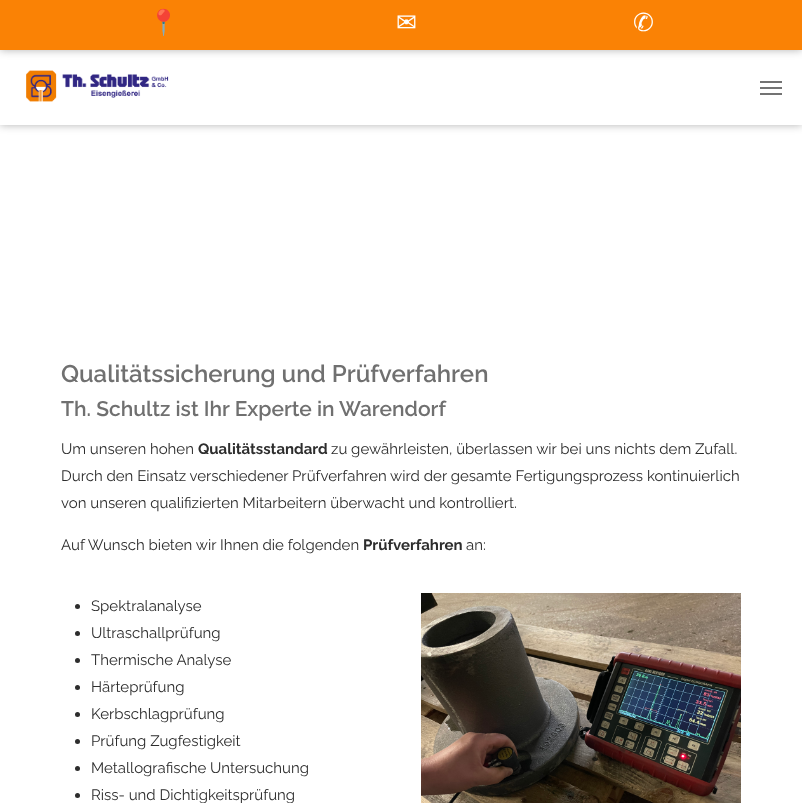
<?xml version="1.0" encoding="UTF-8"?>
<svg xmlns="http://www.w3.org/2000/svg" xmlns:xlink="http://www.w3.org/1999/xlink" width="802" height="803">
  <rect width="100%" height="100%" fill="#ffffff" />
  <rect y="50" width="802" height="75" fill="#000000" fill-opacity="0.3" filter="blur(4.5px)" />
  <rect y="50" width="802" height="75" fill="#ffffff" />
  <rect width="802" height="50" fill="#000000" fill-opacity="0.3" filter="blur(4.5px)" />
  <rect width="802" height="50" fill="#fa8205" />
  <image x="26" y="70" width="143" height="32" xlink:href="image1.png" />
  <rect x="760" y="87" width="22" height="2" fill="#737373" />
  <rect x="760" y="81" width="22" height="2" fill="#737373" />
  <rect x="760" y="93" width="22" height="2" fill="#737373" />
  <circle cx="77.5" cy="606.5" r="2.5" fill="#2d2d2d" />
  <circle cx="77.5" cy="633.5" r="2.5" fill="#2d2d2d" />
  <circle cx="77.5" cy="660.5" r="2.5" fill="#2d2d2d" />
  <circle cx="77.5" cy="687.5" r="2.5" fill="#2d2d2d" />
  <circle cx="77.5" cy="714.5" r="2.5" fill="#2d2d2d" />
  <circle cx="77.5" cy="741.5" r="2.5" fill="#2d2d2d" />
  <circle cx="77.5" cy="768.5" r="2.5" fill="#2d2d2d" />
  <circle cx="77.5" cy="795.5" r="2.5" fill="#2d2d2d" />
  <image x="421" y="593" width="320" height="210" xlink:href="image2.png" />
  <text x="148" y="31" style="font-family: Noto Color Emoji; font-size: 25px; fill: #ffffff">📍</text>
  <text x="396" y="31" style="font-family: DejaVu Sans; font-size: 25px; fill: #ffffff">✉</text>
  <text x="633" y="31" style="font-family: DejaVu Sans; font-size: 25px; fill: #ffffff">✆</text>
  <text x="61" y="382" style="font-family: Raleway; font-size: 24px; font-weight: 600; fill: #707070">Qualitätssicherung und Prüfverfahren</text>
  <text x="61" y="416" style="font-family: Raleway; font-size: 21px; font-weight: 600; fill: #707070">Th. Schultz ist Ihr Experte in Warendorf</text>
  <text x="61" y="454" style="font-family: Raleway; font-size: 15px; fill: #2d2d2d">Um unseren hohen</text>
  <text x="198" y="454" style="font-family: Raleway; font-size: 15px; font-weight: bold; fill: #2d2d2d">Qualitätsstandard</text>
  <text x="331" y="454" style="font-family: Raleway; font-size: 15px; fill: #2d2d2d">zu gewährleisten, überlassen wir bei uns nichts dem Zufall.</text>
  <text x="61" y="481" style="font-family: Raleway; font-size: 15px; fill: #2d2d2d">Durch den Einsatz verschiedener Prüfverfahren wird der gesamte Fertigungsprozess kontinuierlich</text>
  <text x="61" y="508" style="font-family: Raleway; font-size: 15px; fill: #2d2d2d">von unseren qualifizierten Mitarbeitern überwacht und kontrolliert.</text>
  <text x="61" y="550" style="font-family: Raleway; font-size: 15px; fill: #2d2d2d">Auf Wunsch bieten wir Ihnen die folgenden</text>
  <text x="363" y="550" style="font-family: Raleway; font-size: 15px; font-weight: bold; fill: #2d2d2d">Prüfverfahren</text>
  <text x="466" y="550" style="font-family: Raleway; font-size: 15px; fill: #2d2d2d">an:</text>
  <text x="91" y="611" style="font-family: Raleway; font-size: 15px; fill: #2d2d2d">Spektralanalyse</text>
  <text x="91" y="638" style="font-family: Raleway; font-size: 15px; fill: #2d2d2d">Ultraschallprüfung</text>
  <text x="91" y="665" style="font-family: Raleway; font-size: 15px; fill: #2d2d2d">Thermische Analyse</text>
  <text x="91" y="692" style="font-family: Raleway; font-size: 15px; fill: #2d2d2d">Härteprüfung</text>
  <text x="91" y="719" style="font-family: Raleway; font-size: 15px; fill: #2d2d2d">Kerbschlagprüfung</text>
  <text x="91" y="746" style="font-family: Raleway; font-size: 15px; fill: #2d2d2d">Prüfung Zugfestigkeit</text>
  <text x="91" y="773" style="font-family: Raleway; font-size: 15px; fill: #2d2d2d">Metallografische Untersuchung</text>
  <text x="91" y="800" style="font-family: Raleway; font-size: 15px; fill: #2d2d2d">Riss- und Dichtigkeitsprüfung</text>
</svg>
